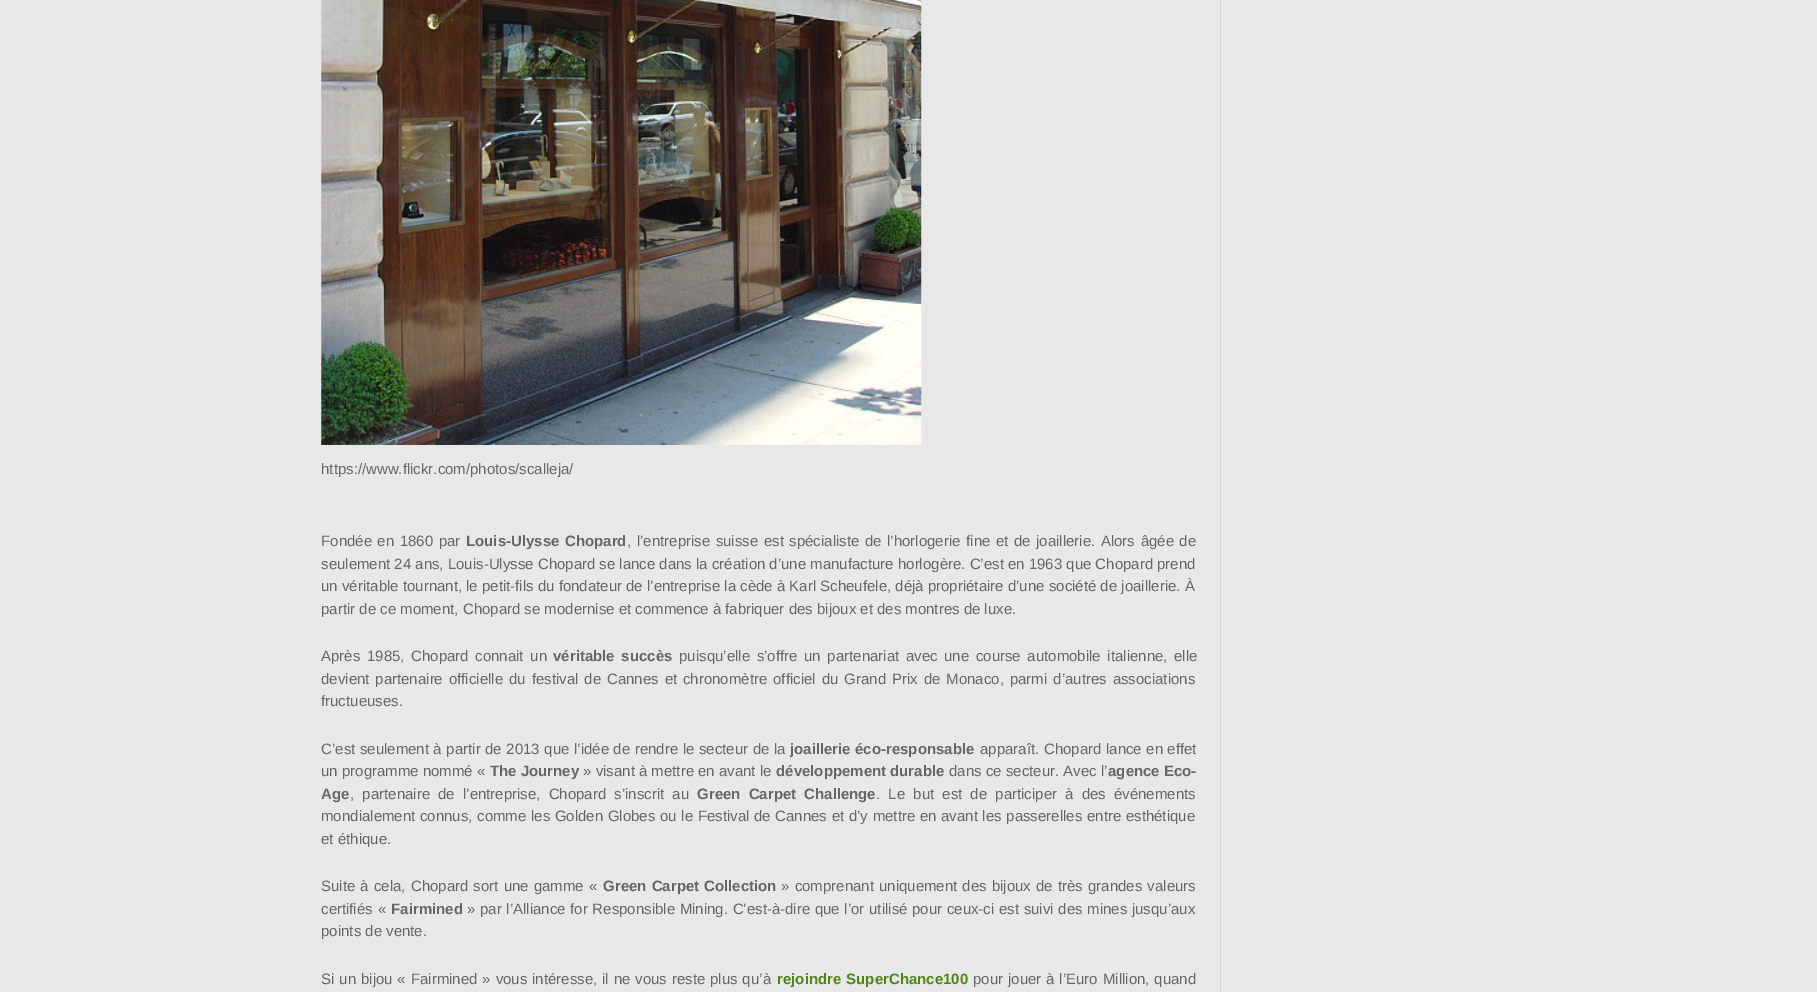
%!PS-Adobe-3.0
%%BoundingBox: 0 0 1817 992
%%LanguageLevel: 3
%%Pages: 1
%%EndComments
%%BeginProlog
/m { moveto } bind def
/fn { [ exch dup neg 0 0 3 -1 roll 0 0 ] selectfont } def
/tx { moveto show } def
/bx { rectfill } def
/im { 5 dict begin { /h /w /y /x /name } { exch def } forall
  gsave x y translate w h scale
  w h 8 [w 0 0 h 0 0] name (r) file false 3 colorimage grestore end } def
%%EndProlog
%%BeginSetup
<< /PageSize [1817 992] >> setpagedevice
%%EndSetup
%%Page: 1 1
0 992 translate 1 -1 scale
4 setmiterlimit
0.91 setgray
0 0 1817 992 bx
0.831 setgray
1220 0 1 992 bx
(image0.raw) 321 0 601 445 im
/LiberationSans-Regular 15 fn
0.4 setgray
(https://www.flickr.com/photos/scalleja/) 321 474 tx
321 546 m 1.4 0 32 (Fondée en 1860 par) widthshow
/LiberationSans-Bold 15 fn
466 546 m 1.4 0 32 (Louis-Ulysse Chopard) widthshow
/LiberationSans-Regular 15 fn
627 546 m 1.4 0 32 (, l’entreprise suisse est spécialiste de l’horlogerie fine et de joaillerie. Alors âgée de) widthshow
(seulement 24 ans, Louis-Ulysse Chopard se lance dans la création d’une manufacture horlogère. C’est en 1963 que Chopard prend) 321 569 tx
(un véritable tournant, le petit-fils du fondateur de l’entreprise la cède à Karl Scheufele, déjà propriétaire d’une société de joaillerie. À) 321 591 tx
(partir de ce moment, Chopard se modernise et commence à fabriquer des bijoux et des montres de luxe.) 321 614 tx
321 661 m 2.5 0 32 (Après 1985, Chopard connait un) widthshow
/LiberationSans-Bold 15 fn
553 661 m 2.5 0 32 (véritable succès) widthshow
/LiberationSans-Regular 15 fn
679 661 m 2.5 0 32 (puisqu’elle s’offre un partenariat avec une course automobile italienne, elle) widthshow
321 684 m 1.8 0 32 (devient partenaire officielle du festival de Cannes et chronomètre officiel du Grand Prix de Monaco, parmi d’autres associations) widthshow
(fructueuses.) 321 706 tx
321 754 m 0.4 0 32 (C’est seulement à partir de 2013 que l’idée de rendre le secteur de la) widthshow
/LiberationSans-Bold 15 fn
(joaillerie éco-responsable) 790 754 tx
/LiberationSans-Regular 15 fn
980 754 m 0.4 0 32 (apparaît. Chopard lance en effet) widthshow
(un programme nommé «) 321 776 tx
/LiberationSans-Bold 15 fn
(The Journey) 490 776 tx
/LiberationSans-Regular 15 fn
(» visant à mettre en avant le) 583 776 tx
/LiberationSans-Bold 15 fn
(développement durable) 776 776 tx
/LiberationSans-Regular 15 fn
(dans ce secteur. Avec l’) 949 776 tx
/LiberationSans-Bold 15 fn
(agence Eco-) 1108 776 tx
(Age) 321 799 tx
/LiberationSans-Regular 15 fn
350 799 m 4 0 32 (, partenaire de l’entreprise, Chopard s’inscrit au) widthshow
/LiberationSans-Bold 15 fn
697 799 m 4 0 32 (Green Carpet Challenge) widthshow
/LiberationSans-Regular 15 fn
876 799 m 4 0 32 (. Le but est de participer à des événements) widthshow
321 821 m 0.5 0 32 (mondialement connus, comme les Golden Globes ou le Festival de Cannes et d’y mettre en avant les passerelles entre esthétique) widthshow
(et éthique.) 321 844 tx
321 891 m 1 0 32 (Suite à cela, Chopard sort une gamme «) widthshow
/LiberationSans-Bold 15 fn
603 891 m 1 0 32 (Green Carpet Collection) widthshow
/LiberationSans-Regular 15 fn
781 891 m 1 0 32 (» comprenant uniquement des bijoux de très grandes valeurs) widthshow
321 914 m 1 0 32 (certifiés «) widthshow
/LiberationSans-Bold 15 fn
(Fairmined) 391 914 tx
/LiberationSans-Regular 15 fn
467 914 m 0.5 0 32 (» par l’Alliance for Responsible Mining. C’est-à-dire que l’or utilisé pour ceux-ci est suivi des mines jusqu’aux) widthshow
(points de vente.) 321 936 tx
321 984 m 0.75 0 32 (Si un bijou « Fairmined » vous intéresse, il ne vous reste plus qu’à) widthshow
/LiberationSans-Bold 15 fn
0.302 0.525 0.078 setrgbcolor
777 984 m 1 0 32 (rejoindre SuperChance100) widthshow
/LiberationSans-Regular 15 fn
0.4 setgray
973 984 m 0.75 0 32 (pour jouer à l’Euro Million, quand) widthshow
showpage
%%EOF
